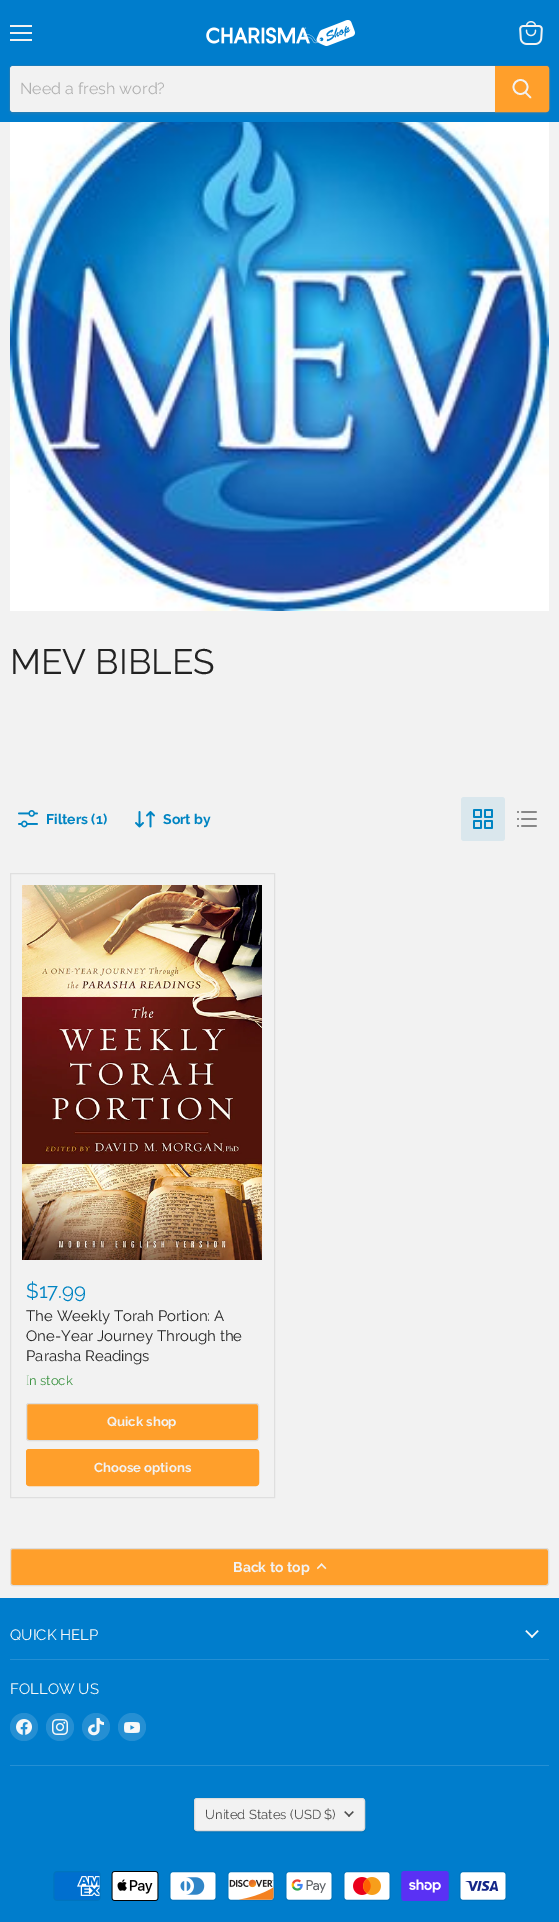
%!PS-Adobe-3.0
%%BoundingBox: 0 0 559 1922
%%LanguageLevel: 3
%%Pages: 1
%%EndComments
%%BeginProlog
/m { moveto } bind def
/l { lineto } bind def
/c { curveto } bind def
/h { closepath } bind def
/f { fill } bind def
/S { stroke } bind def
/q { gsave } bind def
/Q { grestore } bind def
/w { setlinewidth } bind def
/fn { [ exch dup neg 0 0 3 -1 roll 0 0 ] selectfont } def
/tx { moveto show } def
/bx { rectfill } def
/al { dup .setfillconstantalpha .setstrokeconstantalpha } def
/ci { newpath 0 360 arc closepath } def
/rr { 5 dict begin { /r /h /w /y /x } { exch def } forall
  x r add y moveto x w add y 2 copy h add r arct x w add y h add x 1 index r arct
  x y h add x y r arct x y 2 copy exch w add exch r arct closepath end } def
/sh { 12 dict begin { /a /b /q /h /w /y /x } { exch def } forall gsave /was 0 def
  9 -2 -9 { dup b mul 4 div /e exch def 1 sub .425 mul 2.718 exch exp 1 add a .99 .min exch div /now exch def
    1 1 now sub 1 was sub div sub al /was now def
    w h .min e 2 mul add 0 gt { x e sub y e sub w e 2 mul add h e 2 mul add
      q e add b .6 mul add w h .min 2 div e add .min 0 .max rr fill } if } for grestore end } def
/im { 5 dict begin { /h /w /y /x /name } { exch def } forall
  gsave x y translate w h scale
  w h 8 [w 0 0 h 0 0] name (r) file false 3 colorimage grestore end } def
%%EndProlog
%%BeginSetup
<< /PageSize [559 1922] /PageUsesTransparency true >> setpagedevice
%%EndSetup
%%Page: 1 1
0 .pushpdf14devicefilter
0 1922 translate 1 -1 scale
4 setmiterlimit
0.949 setgray
0 0 559 1922 bx
0 0.49 0.8 setrgbcolor
0 0 559 122 bx
0.949 setgray
10 25 22 2 bx
10 32 22 2 bx
10 39 22 2 bx
(image0.raw) 519 21 24 24 im
(image1.raw) 206 20 149 26 im
0.475 setgray
9 67 541 48 4 1.5 0.11 sh
0.2 al
9.5 65.5 540 47 3.5 rr S
1 al
0.949 setgray
13 66 m 495 66 l 495 112 l 13 112 l 11.5 112 10 110.5 10 109 c 10 69 l 10 67.5 11.5 66 13 66 c h f
/Raleway-Regular 16 fn
0.69 setgray
(Need a fresh word?) 20 94 tx
1 0.624 0.169 setrgbcolor
495.5 66.5 m 546 66.5 l 547.5 66.5 548.5 67.5 548.5 69 c 548.5 109 l 548.5 110.5 547.5 111.5 546 111.5 c 495.5 111.5 l h q f Q
S
0.949 setgray
1.7 w
1 setlinecap
530.5 97.5 m 525.5 92.5 l S
0 setlinecap
520.5 87 7 ci S
(image2.raw) 10 122 539 489 im
/Raleway-Regular 35.25 fn
0.133 setgray
(MEV BIBLES) 10 674 tx
(image3.raw) 18 810 20 18 im
/Raleway-Bold 14 fn
0 0.518 0.761 setrgbcolor
(Filters \(1\)) 46 824 tx
(image4.raw) 135 811 20 17 im
(Sort by) 163 824 tx
0.855 0.906 0.929 setrgbcolor
461 797 44 44 3 rr f
(image5.raw) 473 809 20 20 im
(image6.raw) 517 811 20 16 im
0.875 setgray
1 w
10.5 873.5 264 624 rectstroke
(image7.raw) 22 885 240 375 im
/Raleway-Regular 20.5 fn
0 0.518 0.761 setrgbcolor
($17.99) 26 1298 tx
/Raleway-Regular 15 fn
0.133 setgray
(The Weekly Torah Portion: A) 26 1321 tx
(One-Year Journey Through the) 26 1341 tx
(Parasha Readings) 26 1361 tx
/NotoSans-Thin 13.1 fn
0.235 0.576 0.259 setrgbcolor
(I) 26 1385 tx
/Raleway-Regular 13.1 fn
(n stock) 29 1385 tx
1 0.624 0.169 setrgbcolor
26.5 1403.5 232 37 2.5 rr q f Q
0.867 setgray
S
/Raleway-Bold 13.1 fn
0.949 setgray
(Quick shop) 107 1426 tx
1 0.624 0.169 setrgbcolor
26.5 1449.5 232 36 2.5 rr q f Q
S
0.949 setgray
(Choose options) 94 1472 tx
1 0.624 0.169 setrgbcolor
10.5 1548.5 538 37 2.5 rr q f Q
0.867 setgray
S
/Raleway-Bold 14 fn
0.949 setgray
(Back to top) 233 1572 tx
(image8.raw) 317 1563 10 7 im
0 0.49 0.8 setrgbcolor
0 1598 559 324 bx
0.145 0.561 0.827 setrgbcolor
10 1659 539 1 bx
/Raleway-Regular 15 fn
0.973 setgray
(QUICK HELP) 10 1640 tx
(image9.raw) 525 1630 14 8 im
0.145 0.561 0.827 setrgbcolor
10 1765 539 1 bx
0.973 setgray
(FOLLOW US) 10 1694 tx
0.145 0.561 0.827 setrgbcolor
24 1727 14 ci f
(image10.raw) 16 1719 16 16 im
60 1727 14 ci f
(image11.raw) 52 1719 16 16 im
96 1727 14 ci f
(image12.raw) 88 1718 16 18 im
132 1727 14 ci f
(image13.raw) 124 1722 16 11 im
0 setgray
194 1799 171 33 3 1 0.15 sh
0.949 setgray
194.5 1798.5 170 32 2.5 rr q f Q
0.867 setgray
S
/Raleway-Regular 13.1 fn
0.302 setgray
(United States \(USD $\)) 205 1819 tx
(image14.raw) 344 1811 10 6 im
(image15.raw) 53 1871 48 30 im
(image16.raw) 111 1871 48 30 im
(image17.raw) 169 1871 48 30 im
(image18.raw) 227 1871 48 30 im
(image19.raw) 285 1871 48 30 im
(image20.raw) 343 1871 48 30 im
(image21.raw) 401 1871 48 30 im
(image22.raw) 459 1871 48 30 im
.poppdf14devicefilter showpage
%%EOF
